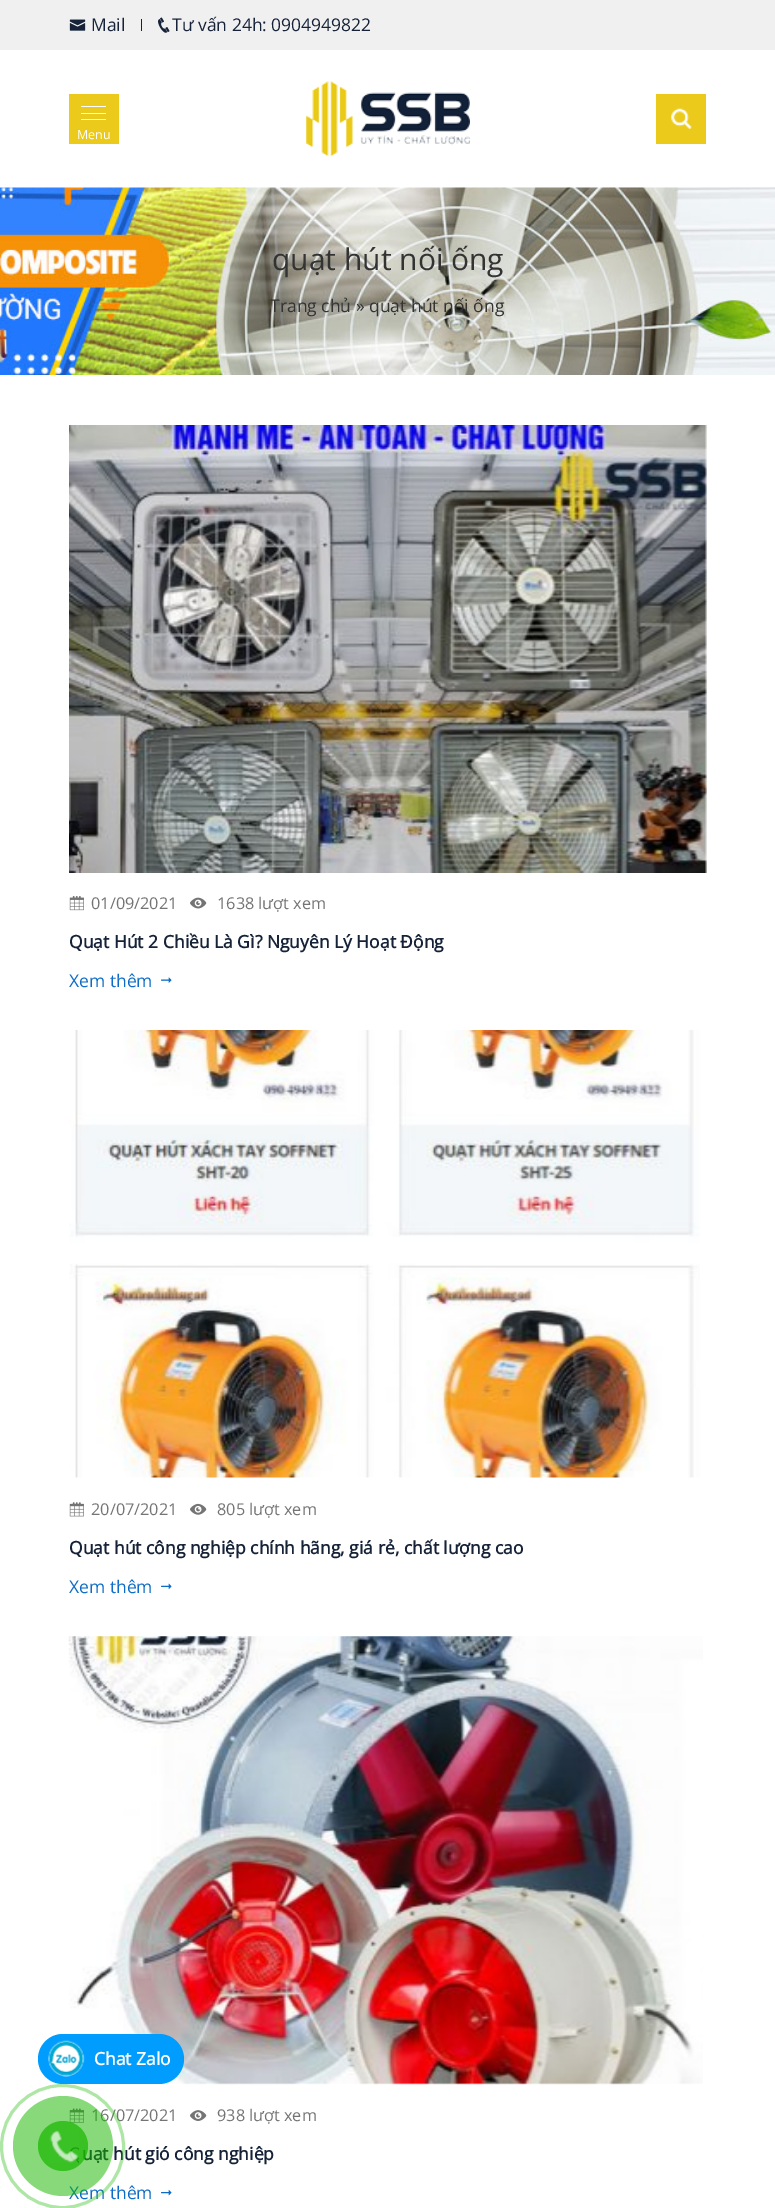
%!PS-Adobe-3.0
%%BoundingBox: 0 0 775 2208
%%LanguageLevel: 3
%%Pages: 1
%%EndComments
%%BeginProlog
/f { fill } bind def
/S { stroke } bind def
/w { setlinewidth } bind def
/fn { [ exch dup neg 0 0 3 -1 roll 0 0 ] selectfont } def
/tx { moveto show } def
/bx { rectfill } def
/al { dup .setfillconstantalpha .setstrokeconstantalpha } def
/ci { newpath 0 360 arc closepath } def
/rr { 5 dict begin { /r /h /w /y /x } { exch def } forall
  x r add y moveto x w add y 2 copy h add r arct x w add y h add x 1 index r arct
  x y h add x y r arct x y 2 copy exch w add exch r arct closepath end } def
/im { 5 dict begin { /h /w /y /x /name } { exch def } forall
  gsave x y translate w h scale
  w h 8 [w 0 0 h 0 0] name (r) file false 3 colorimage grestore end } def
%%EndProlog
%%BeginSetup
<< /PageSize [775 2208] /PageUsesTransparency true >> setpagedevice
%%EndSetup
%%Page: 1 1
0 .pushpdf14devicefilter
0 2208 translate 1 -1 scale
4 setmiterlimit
1 setgray
0 0 775 2208 bx
0.945 0.941 0.941 setrgbcolor
0 0 775 50 bx
(image0.raw) 69 19 17 12 im
/OpenSans-Regular 17.5 fn
0.082 0.133 0.22 setrgbcolor
(Mail) 91 31 tx
141 19 1 12 bx
(image1.raw) 158 17 12 16 im
(Tư vấn 24h: 0904949822) 172 31 tx
0.922 0.792 0.106 setrgbcolor
69 94 50 50 bx
1 setgray
81 119 25 1 0.5 rr f
81 106 25 1 0.5 rr f
81 113 25 1 0.5 rr f
/OpenSans-Regular 12.5 fn
(Menu) 77 139 tx
(image2.raw) 306 81 164 76 im
0.922 0.792 0.106 setrgbcolor
656 94 50 50 bx
(image3.raw) 671 108 21 21 im
(image4.raw) 0 187 775 188 im
/OpenSans-Regular 30 fn
0.2 setgray
(quạt hút nối ống) 272 270 tx
/OpenSans-Regular 17.5 fn
(Trang chủ » quạt hút nối ống) 270 312 tx
(image5.raw) 69 425 638 448 im
(image6.raw) 69 896 15 15 im
/OpenSans-Regular 16.25 fn
0.455 setgray
(01/09/2021) 91 909 tx
(image7.raw) 190 897 17 12 im
(1638 lượt xem) 217 909 tx
/OpenSans-Bold 17.5 fn
0.082 0.133 0.22 setrgbcolor
(Quạt Hút 2 Chiều Là Gì? Nguyên Lý Hoạt Động) 69 948 tx
/OpenSans-Regular 17.5 fn
0.051 0.427 0.776 setrgbcolor
(Xem thêm) 69 987 tx
(image8.raw) 161 977 11 6 im
(image9.raw) 69 1030 631 448 im
(image10.raw) 69 1502 15 15 im
/OpenSans-Regular 16.25 fn
0.455 setgray
(20/07/2021) 91 1515 tx
(image11.raw) 190 1503 17 12 im
(805 lượt xem) 217 1515 tx
/OpenSans-Bold 17.5 fn
0.082 0.133 0.22 setrgbcolor
(Quạt hút công nghiệp chính hãng, giá rẻ, chất lượng cao) 69 1554 tx
/OpenSans-Regular 17.5 fn
0.051 0.427 0.776 setrgbcolor
(Xem thêm) 69 1593 tx
(image12.raw) 161 1583 11 7 im
(image13.raw) 68 1636 635 449 im
(image14.raw) 69 2108 15 15 im
/OpenSans-Regular 16.25 fn
0.455 setgray
(16/07/2021) 91 2121 tx
(image15.raw) 190 2110 17 11 im
(938 lượt xem) 217 2121 tx
/OpenSans-Bold 17.5 fn
0.082 0.133 0.22 setrgbcolor
(uạt hút gió công nghiệp) 82 2160 tx
/OpenSans-Regular 17.5 fn
0.051 0.427 0.776 setrgbcolor
(Xem thêm) 69 2199 tx
(image16.raw) 161 2189 11 7 im
0 0.616 1 setrgbcolor
38 2034 146 50 25 rr f
(image17.raw) 48 2040 37 37 im
/OpenSans-Bold 17.5 fn
1 setgray
(Chat Zalo) 94 2065 tx
0.35 al
0.094 0.718 0 setrgbcolor
3 w
62.5 2146.5 61 ci S
0.52 al
63 2146 50 ci f
0.7 al
63 2146 25 ci f
1 al
(image18.raw) 49 2130 30 33 im
.poppdf14devicefilter showpage
%%EOF
